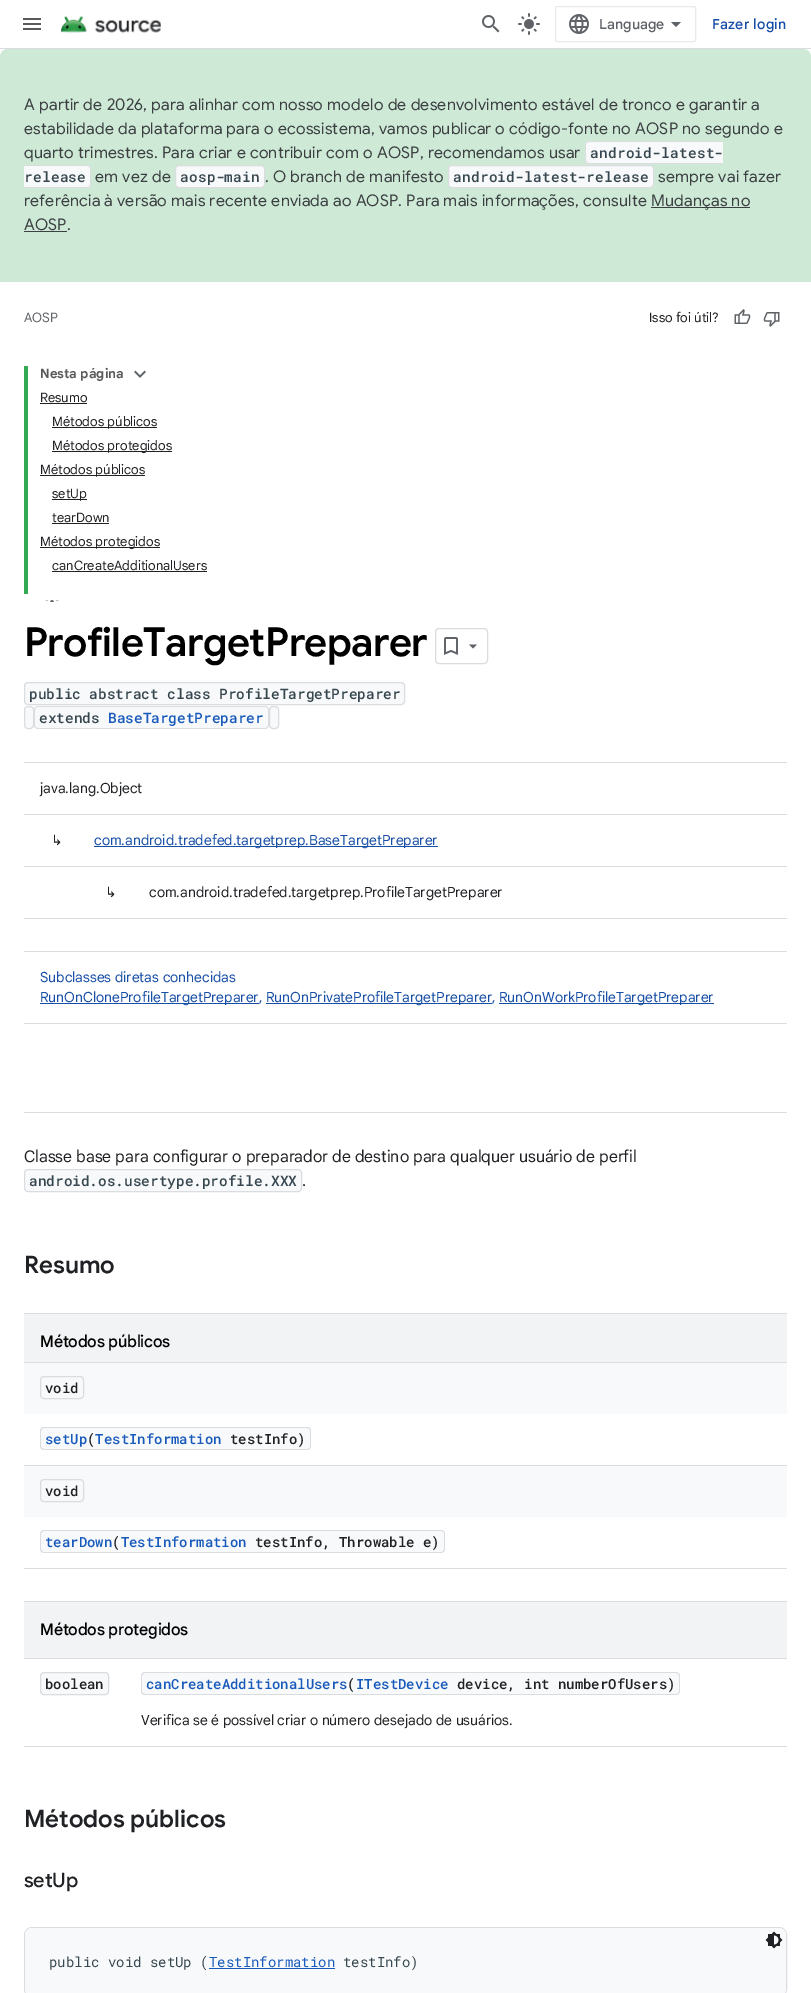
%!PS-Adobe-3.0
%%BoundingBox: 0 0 811 1993
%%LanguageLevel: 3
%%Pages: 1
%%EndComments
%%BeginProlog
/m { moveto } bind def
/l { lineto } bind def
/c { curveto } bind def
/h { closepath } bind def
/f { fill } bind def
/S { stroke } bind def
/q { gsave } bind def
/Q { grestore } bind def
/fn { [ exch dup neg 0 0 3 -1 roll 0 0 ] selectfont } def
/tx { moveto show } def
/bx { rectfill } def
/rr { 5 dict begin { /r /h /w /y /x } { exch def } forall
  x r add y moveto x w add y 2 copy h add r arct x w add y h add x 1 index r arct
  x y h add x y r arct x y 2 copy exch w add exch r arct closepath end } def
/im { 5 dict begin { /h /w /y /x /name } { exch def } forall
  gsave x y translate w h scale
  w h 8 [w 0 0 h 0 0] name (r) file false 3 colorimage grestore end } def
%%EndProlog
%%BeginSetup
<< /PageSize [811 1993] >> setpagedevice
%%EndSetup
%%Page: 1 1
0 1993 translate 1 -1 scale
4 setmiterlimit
1 setgray
0 0 811 1993 bx
0.855 0.863 0.878 setrgbcolor
0 48 811 1 bx
(image0.raw) 23 18 18 12 im
(image1.raw) 60 15 101 18 im
(image2.raw) 482 15 18 18 im
(image3.raw) 518 13 22 22 im
0.91 0.918 0.929 setrgbcolor
555.5 6.5 140 35 1.5 rr S
(image4.raw) 569 14 20 20 im
/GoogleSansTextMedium-Medium 14 fn
0.373 0.388 0.408 setrgbcolor
(Language) 599 29 tx
676 27 m 671 22 l 681 22 l h f
0.09 0.306 0.651 setrgbcolor
712 29 m 0.25 0 (Fazer login) ashow
0.808 0.918 0.839 setrgbcolor
8 49 m 803 49 l 807.5 49 811 52.5 811 57 c 811 282 l 0 282 l 0 57 l 0 52.5 3.5 49 8 49 c h f
/GoogleSans-Regular 16 fn
0.235 0.251 0.263 setrgbcolor
24 110 m 0.25 0 (A partir de 2026, para alinhar com nosso modelo de desenvolvimento estável de tronco e garantir a) ashow
24 134 m 0.25 0 (estabilidade da plataforma para o ecossistema, vamos publicar o código-fonte no AOSP no segundo e) ashow
24 158 m 0.25 0 (quarto trimestres. Para criar e contribuir com o AOSP, recomendamos usar) ashow
0.973 0.976 0.98 setrgbcolor
589 141 m 723 141 l 723 164 l 589 164 l 587 164 585 162 585 160 c 585 145 l 585 143 587 141 589 141 c h f
0.855 0.863 0.878 setrgbcolor
589 141 m 723 141 l 723 164 l 589 164 l 587 164 585 162 585 160 c 585 145 l 585 143 587 141 589 141 c h 589 142 m 723 142 l 723 163 l 589 163 l 587 163 586 162 586 160 c 586 145 l 586 143 587 142 589 142 c h eofill
/RobotoMono-Medium 14.4 fn
0.216 0.278 0.31 setrgbcolor
590 158 m 0.25 0 (android-latest-) ashow
0.973 0.976 0.98 setrgbcolor
24 165 m 87 165 l 89 165 91 167 91 169 c 91 184 l 91 186 89 188 87 188 c 24 188 l h f
0.855 0.863 0.878 setrgbcolor
24 165 m 87 165 l 89 165 91 167 91 169 c 91 184 l 91 186 89 188 87 188 c 24 188 l h 24 166 m 87 166 l 89 166 90 167 90 169 c 90 184 l 90 186 89 187 87 187 c 24 187 l h eofill
0.216 0.278 0.31 setrgbcolor
24 182 m 0.25 0 (release) ashow
/GoogleSans-Regular 16 fn
0.235 0.251 0.263 setrgbcolor
95 182 m 0.25 0 (em vez de) ashow
0.973 0.976 0.98 setrgbcolor
175.5 165.5 89 22 3.5 rr q f Q
0.855 0.863 0.878 setrgbcolor
S
/RobotoMono-Medium 14.4 fn
0.216 0.278 0.31 setrgbcolor
180 182 m 0.25 0 (aosp-main) ashow
/GoogleSans-Regular 16 fn
0.235 0.251 0.263 setrgbcolor
265 182 m 0.25 0 (. O branch de manifesto) ashow
0.973 0.976 0.98 setrgbcolor
448.5 165.5 205 22 3.5 rr q f Q
0.855 0.863 0.878 setrgbcolor
S
/RobotoMono-Medium 14.4 fn
0.216 0.278 0.31 setrgbcolor
453 182 m 0.25 0 (android-latest-release) ashow
/GoogleSans-Regular 16 fn
0.235 0.251 0.263 setrgbcolor
658 182 m 0.25 0 (sempre vai fazer) ashow
24 206 m 0.25 0 (referência à versão mais recente enviada ao AOSP. Para mais informações, consulte) ashow
651 207 99 1 bx
651 206 m 0.25 0 (Mudanças no) ashow
24 230 m 0.25 0 (AOSP.) ashow
24 231 43 1 bx
/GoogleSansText-Regular 13 fn
0.373 0.388 0.408 setrgbcolor
(AOSP) 24 322 tx
0.125 0.129 0.141 setrgbcolor
(Isso foi útil?) 649 322 tx
(image5.raw) 734 309 17 15 im
(image6.raw) 763 312 17 15 im
0.204 0.659 0.325 setrgbcolor
24 366 4 228 bx
/GoogleSansText-Bold 13 fn
0.349 setgray
(Nesta página) 40 378 tx
(image7.raw) 134 370 12 8 im
/GoogleSansText-Regular 13 fn
0.125 0.129 0.141 setrgbcolor
(Resumo) 40 402 tx
40 403 47 1 bx
52 427 105 1 bx
(Métodos públicos) 52 426 tx
52 451 120 1 bx
(Métodos protegidos) 52 450 tx
40 475 105 1 bx
(Métodos públicos) 40 474 tx
52 499 35 1 bx
(setUp) 52 498 tx
(tearDown) 52 522 tx
52 523 57 1 bx
40 547 120 1 bx
(Métodos protegidos) 40 546 tx
(canCreateAdditionalUsers) 52 570 tx
52 571 155 1 bx
(image8.raw) 45 600 14 2 im
/GoogleSans-SemiBold 40 fn
0 setgray
24 656 m -0.5 0 (ProfileTargetPreparer) ashow
0.855 0.863 0.878 setrgbcolor
435.5 628.5 52 35 3.5 rr S
(image9.raw) 444 637 14 18 im
0.373 0.388 0.408 setrgbcolor
469 644.5 m 477 644.5 l 473 648.5 l h f
0.973 0.976 0.98 setrgbcolor
24.5 682.5 380 22 3.5 rr q f Q
0.855 0.863 0.878 setrgbcolor
S
/RobotoMono-Medium 14.4 fn
0.216 0.278 0.31 setrgbcolor
(public abstract class ProfileTargetPreparer) 29 699 tx
0.973 0.976 0.98 setrgbcolor
24.5 706.5 9 22 3.5 rr q f Q
0.855 0.863 0.878 setrgbcolor
S
0.973 0.976 0.98 setrgbcolor
38 706 m 108 706 l 108 729 l 38 729 l 36 729 34 727 34 725 c 34 710 l 34 708 36 706 38 706 c h f
0.855 0.863 0.878 setrgbcolor
38 706 m 108 706 l 108 729 l 38 729 l 36 729 34 727 34 725 c 34 710 l 34 708 36 706 38 706 c h 38 707 m 108 707 l 108 728 l 38 728 l 36 728 35 727 35 725 c 35 710 l 35 708 36 707 38 707 c h eofill
0.216 0.278 0.31 setrgbcolor
(extends) 39 723 tx
0.973 0.976 0.98 setrgbcolor
108 706 m 265 706 l 267 706 269 708 269 710 c 269 725 l 269 727 267 729 265 729 c 108 729 l h f
0.855 0.863 0.878 setrgbcolor
108 706 m 265 706 l 267 706 269 708 269 710 c 269 725 l 269 727 267 729 265 729 c 108 729 l h 108 707 m 265 707 l 267 707 268 708 268 710 c 268 725 l 268 727 267 728 265 728 c 108 728 l h eofill
0.094 0.353 0.737 setrgbcolor
(BaseTargetPreparer) 108 723 tx
0.973 0.976 0.98 setrgbcolor
269.5 706.5 9 22 3.5 rr q f Q
0.855 0.863 0.878 setrgbcolor
S
24 762 763 1 bx
24 814 763 1 bx
/GoogleSansText-Regular 14 fn
0.125 0.129 0.141 setrgbcolor
(java.lang.Object) 40 793 tx
0.855 0.863 0.878 setrgbcolor
24 866 763 1 bx
/DejaVuSans-Regular 14 fn
0.125 0.129 0.141 setrgbcolor
(↳) 51 845 tx
0.09 0.306 0.651 setrgbcolor
94 846 344 1 bx
/GoogleSansText-Regular 14 fn
(com.android.tradefed.targetprep.BaseTargetPreparer) 94 845 tx
0.855 0.863 0.878 setrgbcolor
24 918 763 1 bx
/DejaVuSans-Regular 14 fn
0.125 0.129 0.141 setrgbcolor
(↳) 105 897 tx
/GoogleSansText-Regular 14 fn
(com.android.tradefed.targetprep.ProfileTargetPreparer) 149 897 tx
0.855 0.863 0.878 setrgbcolor
24 951 763 1 bx
24 1023 763 1 bx
0.09 0.306 0.651 setrgbcolor
(Subclasses diretas conhecidas) 40 982 tx
40 1003 219 1 bx
(RunOnCloneProfileTargetPreparer,) 40 1002 tx
266 1003 226 1 bx
(RunOnPrivateProfileTargetPreparer,) 266 1002 tx
499 1003 215 1 bx
(RunOnWorkProfileTargetPreparer) 499 1002 tx
0.855 0.863 0.878 setrgbcolor
24 1112 763 1 bx
/GoogleSansText-Regular 16 fn
0.125 0.129 0.141 setrgbcolor
(Classe base para configurar o preparador de destino para qualquer usuário de perfil) 24 1162 tx
0.973 0.976 0.98 setrgbcolor
24.5 1169.5 277 22 3.5 rr q f Q
0.855 0.863 0.878 setrgbcolor
S
/RobotoMono-Medium 14.4 fn
0.216 0.278 0.31 setrgbcolor
(android.os.usertype.profile.XXX) 29 1186 tx
/GoogleSansText-Regular 16 fn
0.125 0.129 0.141 setrgbcolor
(.) 302 1186 tx
/GoogleSans-SemiBold 24 fn
(Resumo) 24 1273 tx
0.855 0.863 0.878 setrgbcolor
24 1313 763 1 bx
24 1362 763 1 bx
0.945 0.953 0.957 setrgbcolor
24 1314 763 48 bx
/GoogleSansTextMedium-Medium 16 fn
0 setgray
40 1347 m -0.25 0 (Métodos públicos) ashow
0.855 0.863 0.878 setrgbcolor
24 1465 763 1 bx
0.973 0.976 0.98 setrgbcolor
24 1363 763 51 bx
0.855 0.863 0.878 setrgbcolor
40.5 1376.5 43 22 3.5 rr S
/RobotoMono-Medium 14 fn
0.125 0.129 0.141 setrgbcolor
(void) 45 1393 tx
0.973 0.976 0.98 setrgbcolor
44 1427 m 70 1427 l 70 1450 l 44 1450 l 42 1450 40 1448 40 1446 c 40 1431 l 40 1429 42 1427 44 1427 c h f
0.855 0.863 0.878 setrgbcolor
44 1427 m 70 1427 l 70 1450 l 44 1450 l 42 1450 40 1448 40 1446 c 40 1431 l 40 1429 42 1427 44 1427 c h 44 1428 m 70 1428 l 70 1449 l 44 1449 l 42.5 1449 41 1447.5 41 1446 c 41 1431 l 41 1429.5 42.5 1428 44 1428 c h eofill
0.973 0.976 0.98 setrgbcolor
70 1428 17 21 bx
87 1427 8 23 bx
95 1428 168 21 bx
0.094 0.353 0.737 setrgbcolor
(setUp TestInformation) 45 1444 tx
0.125 0.129 0.141 setrgbcolor
(\() 87 1444 tx
0.973 0.976 0.98 setrgbcolor
263 1427 m 307 1427 l 309 1427 311 1429 311 1431 c 311 1446 l 311 1448 309 1450 307 1450 c 263 1450 l h f
0.855 0.863 0.878 setrgbcolor
263 1427 m 307 1427 l 309 1427 311 1429 311 1431 c 311 1446 l 311 1448 309 1450 307 1450 c 263 1450 l h 263 1428 m 307 1428 l 309 1428 310 1429 310 1431 c 310 1446 l 310 1448 309 1449 307 1449 c 263 1449 l h eofill
0.125 0.129 0.141 setrgbcolor
(testInfo\)) 230 1444 tx
0.855 0.863 0.878 setrgbcolor
70 1427 17 1 bx
70 1449 17 1 bx
87 1427 176 1 bx
87 1449 176 1 bx
24 1568 763 1 bx
0.973 0.976 0.98 setrgbcolor
24 1466 763 51 bx
0.855 0.863 0.878 setrgbcolor
40.5 1479.5 43 22 3.5 rr S
0.125 0.129 0.141 setrgbcolor
(void) 45 1496 tx
0.973 0.976 0.98 setrgbcolor
44 1530 m 79 1530 l 79 1553 l 44 1553 l 42 1553 40 1551 40 1549 c 40 1534 l 40 1532 42 1530 44 1530 c h f
0.855 0.863 0.878 setrgbcolor
44 1530 m 79 1530 l 79 1553 l 44 1553 l 42 1553 40 1551 40 1549 c 40 1534 l 40 1532 42 1530 44 1530 c h 44 1531 m 79 1531 l 79 1552 l 44 1552 l 42.5 1552 41 1550.5 41 1549 c 41 1534 l 41 1532.5 42.5 1531 44 1531 c h eofill
0.973 0.976 0.98 setrgbcolor
79 1531 252 21 bx
0.094 0.353 0.737 setrgbcolor
(tearDown TestInformation) 45 1547 tx
0.125 0.129 0.141 setrgbcolor
(\() 112 1547 tx
0.855 0.863 0.878 setrgbcolor
79 1552 252 1 bx
0.973 0.976 0.98 setrgbcolor
331 1530 m 441 1530 l 443 1530 445 1532 445 1534 c 445 1549 l 445 1551 443 1553 441 1553 c 331 1553 l h f
0.855 0.863 0.878 setrgbcolor
331 1530 m 441 1530 l 443 1530 445 1532 445 1534 c 445 1549 l 445 1551 443 1553 441 1553 c 331 1553 l h 331 1531 m 441 1531 l 443 1531 444 1532 444 1534 c 444 1549 l 444 1551 443 1552 441 1552 c 331 1552 l h eofill
0.125 0.129 0.141 setrgbcolor
(testInfo, Throwable e\)) 255 1547 tx
0.855 0.863 0.878 setrgbcolor
79 1530 252 1 bx
24 1601 763 1 bx
24 1658 763 1 bx
0.945 0.953 0.957 setrgbcolor
24 1602 763 56 bx
/GoogleSansTextMedium-Medium 16 fn
0 setgray
40 1635 m -0.25 0 (Métodos protegidos) ashow
0.855 0.863 0.878 setrgbcolor
24 1746 763 1 bx
0.973 0.976 0.98 setrgbcolor
40.5 1672.5 68 22 3.5 rr q f Q
0.855 0.863 0.878 setrgbcolor
S
/RobotoMono-Medium 14 fn
0.125 0.129 0.141 setrgbcolor
(boolean) 45 1689 tx
0.973 0.976 0.98 setrgbcolor
145 1672 m 171 1672 l 171 1695 l 145 1695 l 143 1695 141 1693 141 1691 c 141 1676 l 141 1674 143 1672 145 1672 c h f
0.855 0.863 0.878 setrgbcolor
145 1672 m 171 1672 l 171 1695 l 145 1695 l 143 1695 141 1693 141 1691 c 141 1676 l 141 1674 143 1672 145 1672 c h 145 1673 m 171 1673 l 171 1694 l 145 1694 l 143.5 1694 142 1692.5 142 1691 c 142 1676 l 142 1674.5 143.5 1673 145 1673 c h eofill
0.973 0.976 0.98 setrgbcolor
171 1673 454 21 bx
0.094 0.353 0.737 setrgbcolor
(canCreateAdditionalUsers ITestDevice) 146 1689 tx
0.125 0.129 0.141 setrgbcolor
(\() 347 1689 tx
0.855 0.863 0.878 setrgbcolor
171 1694 454 1 bx
0.973 0.976 0.98 setrgbcolor
625 1672 m 676 1672 l 678 1672 680 1674 680 1676 c 680 1691 l 680 1693 678 1695 676 1695 c 625 1695 l h f
0.855 0.863 0.878 setrgbcolor
625 1672 m 676 1672 l 678 1672 680 1674 680 1676 c 680 1691 l 680 1693 678 1695 676 1695 c 625 1695 l h 625 1673 m 676 1673 l 678 1673 679 1674 679 1676 c 679 1691 l 679 1693 678 1694 676 1694 c 625 1694 l h eofill
0.125 0.129 0.141 setrgbcolor
(device, int numberOfUsers\)) 457 1689 tx
0.855 0.863 0.878 setrgbcolor
171 1672 454 1 bx
/GoogleSansText-Regular 14 fn
0.125 0.129 0.141 setrgbcolor
(Verifica se é possível criar o número desejado de usuários.) 141 1725 tx
/GoogleSans-SemiBold 24 fn
(Métodos públicos) 24 1827 tx
/GoogleSans-Medium 20 fn
24 1887 m -0.25 0 (setUp) ashow
0.855 0.863 0.878 setrgbcolor
24.5 1927.5 762 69 7.5 rr S
0.973 0.976 0.98 setrgbcolor
25 1928 761 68 7 rr f
(image10.raw) 765 1931 18 18 im
/RobotoMono-Regular 14 fn
0.216 0.278 0.31 setrgbcolor
(public void setUp \() 49 1967 tx
0.094 0.353 0.737 setrgbcolor
(TestInformation) 209 1967 tx
209 1968 126 1 bx
0.216 0.278 0.31 setrgbcolor
(testInfo\)) 343 1967 tx
showpage
%%EOF
